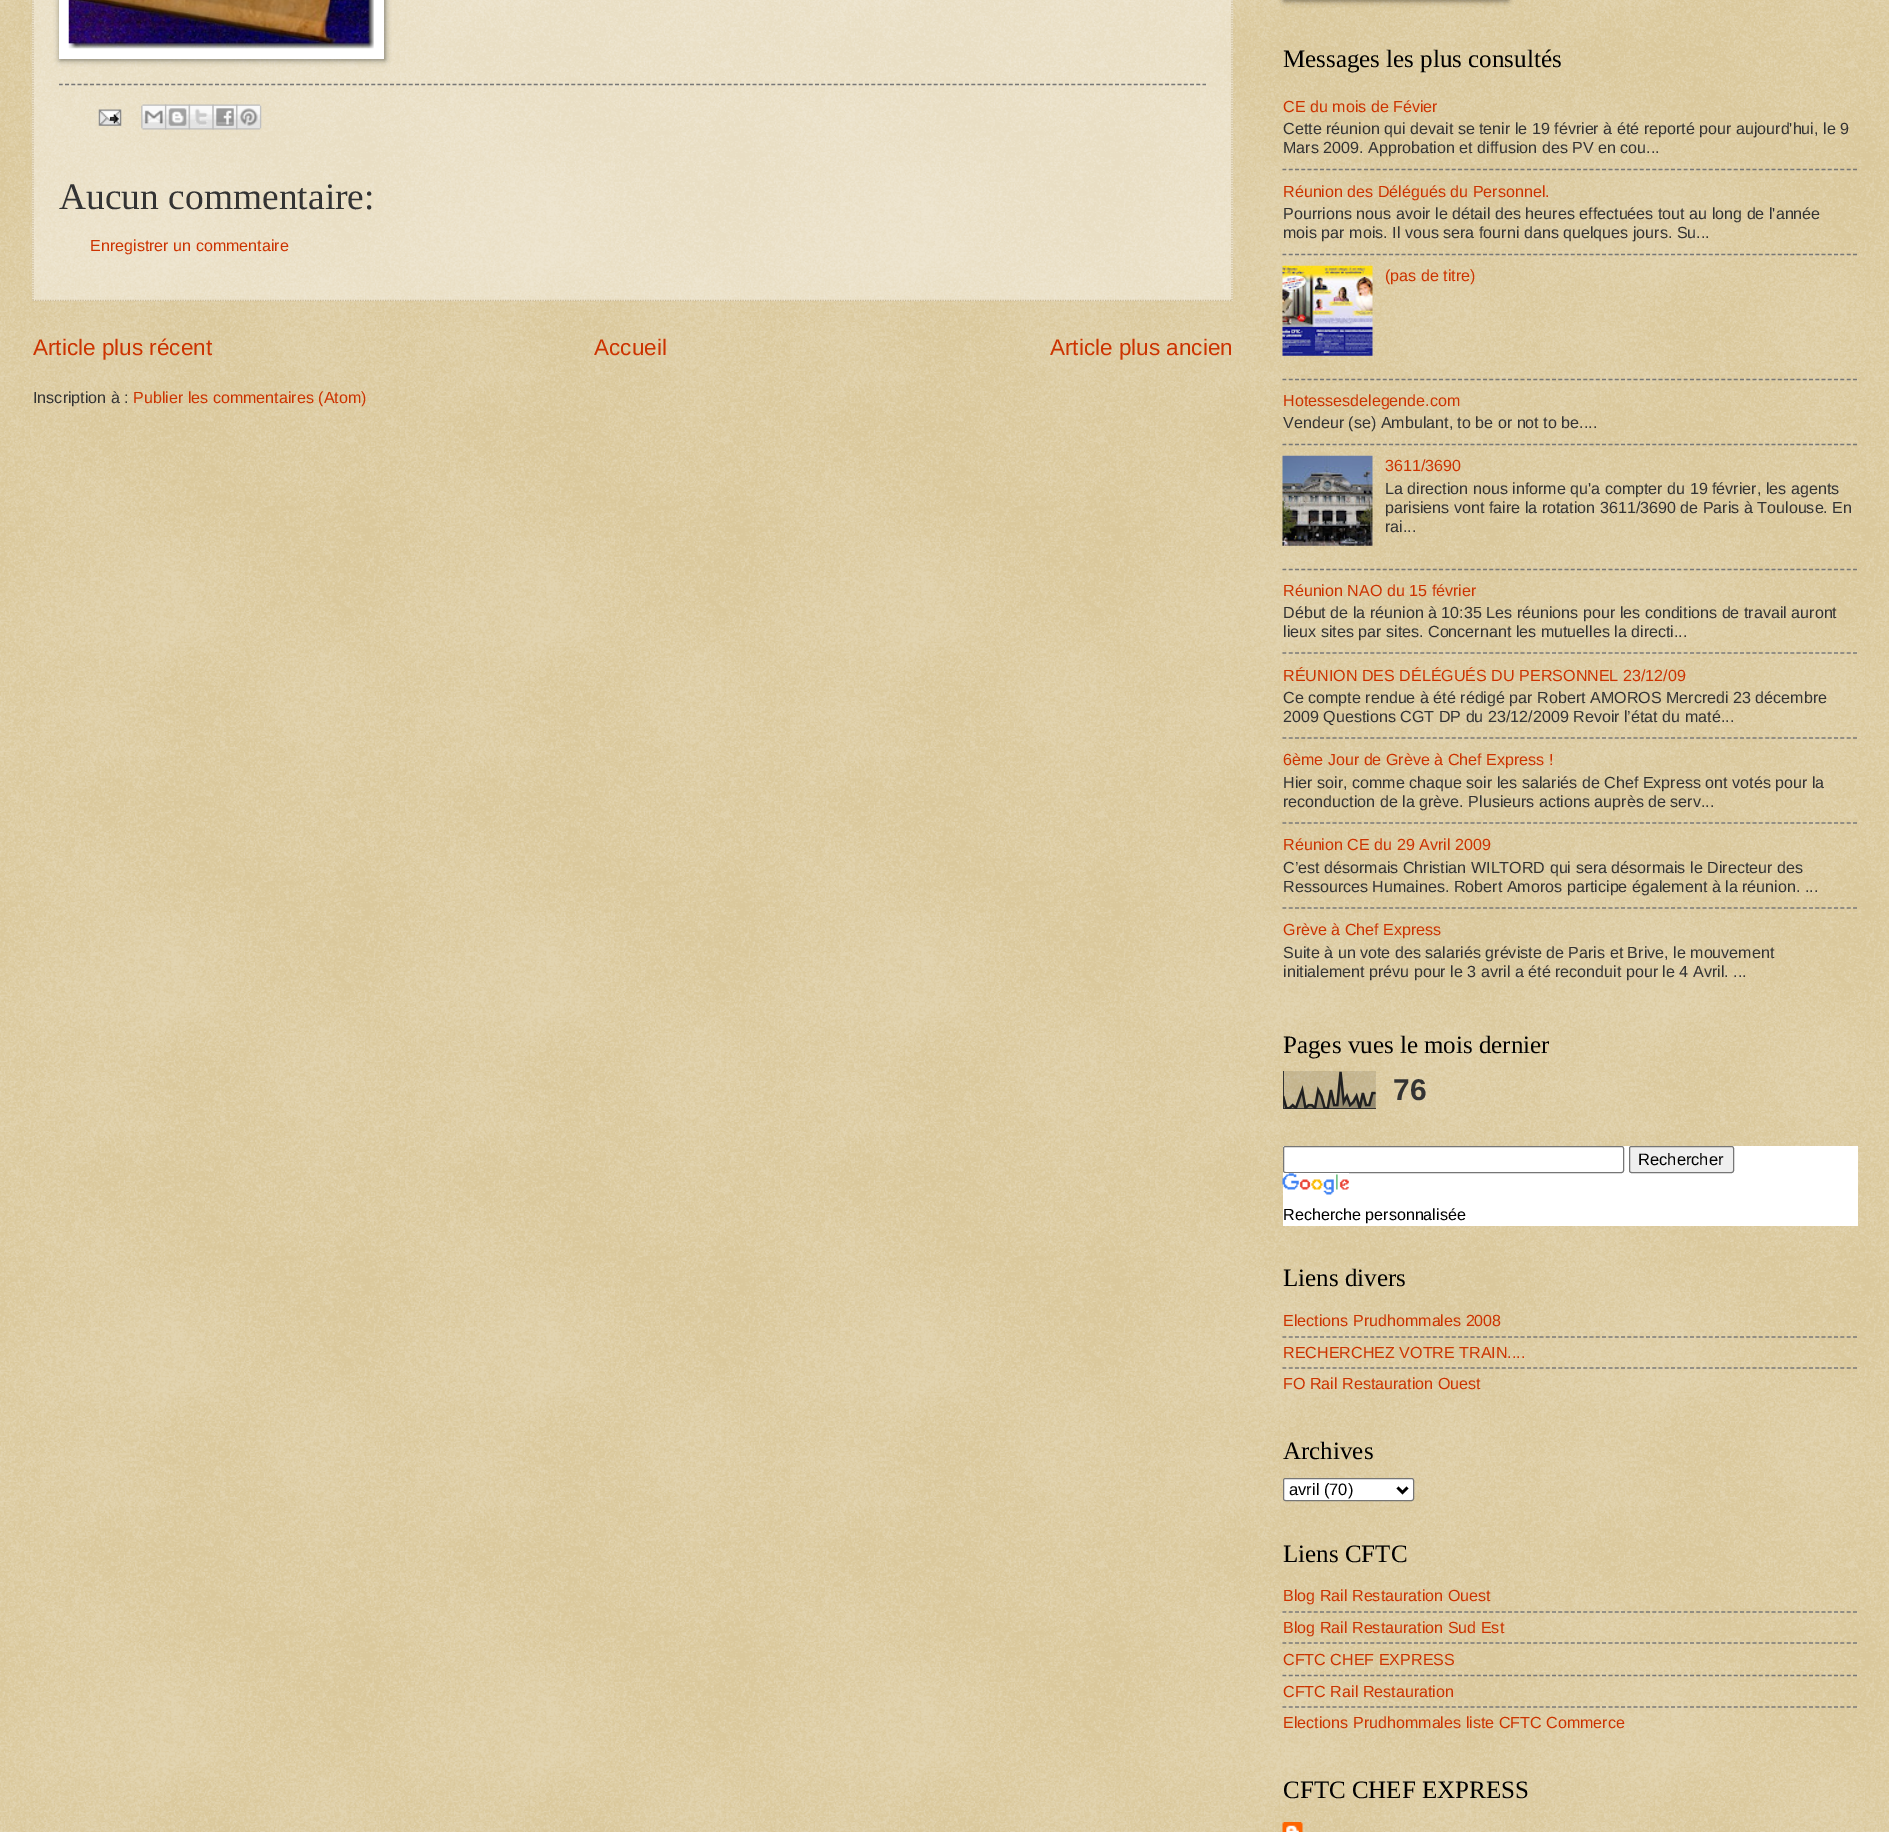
%!PS-Adobe-3.0
%%BoundingBox: 0 0 1889 1832
%%LanguageLevel: 3
%%Pages: 1
%%EndComments
%%BeginProlog
/m { moveto } bind def
/l { lineto } bind def
/f { fill } bind def
/S { stroke } bind def
/q { gsave } bind def
/Q { grestore } bind def
/w { setlinewidth } bind def
/fn { [ exch dup neg 0 0 3 -1 roll 0 0 ] selectfont } def
/tx { moveto show } def
/bx { rectfill } def
/al { dup .setfillconstantalpha .setstrokeconstantalpha } def
/rr { 5 dict begin { /r /h /w /y /x } { exch def } forall
  x r add y moveto x w add y 2 copy h add r arct x w add y h add x 1 index r arct
  x y h add x y r arct x y 2 copy exch w add exch r arct closepath end } def
/sh { 12 dict begin { /a /b /q /h /w /y /x } { exch def } forall gsave /was 0 def
  9 -2 -9 { dup b mul 4 div /e exch def 1 sub .425 mul 2.718 exch exp 1 add a .99 .min exch div /now exch def
    1 1 now sub 1 was sub div sub al /was now def
    w h .min e 2 mul add 0 gt { x e sub y e sub w e 2 mul add h e 2 mul add
      q e add b .6 mul add w h .min 2 div e add .min 0 .max rr fill } if } for grestore end } def
/im { 5 dict begin { /h /w /y /x /name } { exch def } forall
  gsave x y translate w h scale
  w h 8 [w 0 0 h 0 0] name (r) file false 3 colorimage grestore end } def
%%EndProlog
%%BeginSetup
<< /PageSize [1889 1832] /PageUsesTransparency true >> setpagedevice
%%EndSetup
%%Page: 1 1
0 .pushpdf14devicefilter
0 1832 translate 1 -1 scale
4 setmiterlimit
0.753 0.631 0.329 setrgbcolor
0 0 1889 1832 bx
(image0.raw) 0 0 1889 1832 im
0.4 al
1 setgray
32 0 1201 301 bx
1 al
0.8 0.733 0.6 setrgbcolor
1.2 w
[1.25 1.25] 0 setdash
1232 -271 m 1232 301 l S
32.5 300.5 m 1232.5 300.5 l S
33 -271 m 33 301 l S
0 setgray
60 -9 325 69 0 3 0.5 sh
1 setgray
59 0 325 59 bx
(image1.raw) 68 0 306 49 im
0.467 setgray
[3.75 2.5] 0 setdash
59 84.5 m 1206 84.5 l S
(image2.raw) 98 109 24 17 im
(image3.raw) 141 104 26 26 im
(image4.raw) 165 104 25 26 im
(image5.raw) 188 104 26 26 im
(image6.raw) 212 104 26 26 im
(image7.raw) 236 104 26 26 im
/LiberationSerif-Regular 37.5 fn
0.2 setgray
(Aucun commentaire:) 59 209 tx
/LiberationSans-Regular 16.1 fn
0.8 0.2 0 setrgbcolor
(Enregistrer un commentaire) 90 251 tx
/LiberationSans-Regular 22.5 fn
(Article plus récent) 33 355 tx
(Accueil) 594 355 tx
(Article plus ancien) 1050 355 tx
/LiberationSans-Regular 16.1 fn
0.2 setgray
(Inscription à :) 33 403 tx
0.8 0.2 0 setrgbcolor
(Publier les commentaires \(Atom\)) 133 403 tx
0 setgray
1284 -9 224 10 0 3 0.5 sh
/LiberationSerif-Regular 25 fn
(Messages les plus consultés) 1283 67 tx
/LiberationSans-Regular 16.1 fn
0.8 0.2 0 setrgbcolor
(CE du mois de Févier) 1283 112 tx
0.2 setgray
(Cette réunion qui devait se tenir le 19 février à été reporté pour aujourd'hui, le 9) 1283 134 tx
(Mars 2009. Approbation et diffusion des PV en cou...) 1283 153 tx
0.467 setgray
[3.75 2.52] 0 setdash
1282.5 169.5 m 1857.5 169.5 l S
0.8 0.2 0 setrgbcolor
(Réunion des Délégués du Personnel.) 1283 197 tx
0.2 setgray
(Pourrions nous avoir le détail des heures effectuées tout au long de l'année) 1283 219 tx
(mois par mois. Il vous sera fourni dans quelques jours. Su...) 1283 238 tx
0.467 setgray
1282.5 254.5 m 1857.5 254.5 l S
(image8.raw) 1282 265 91 91 im
0.8 0.2 0 setrgbcolor
(\(pas de titre\)) 1385 281 tx
0.467 setgray
1282.5 379.5 m 1857.5 379.5 l S
0.8 0.2 0 setrgbcolor
(Hotessesdelegende.com) 1283 406 tx
0.2 setgray
(Vendeur \(se\) Ambulant, to be or not to be....) 1283 428 tx
0.467 setgray
1282.5 444.5 m 1857.5 444.5 l S
(image9.raw) 1282 455 91 91 im
0.8 0.2 0 setrgbcolor
(3611/3690) 1385 471 tx
0.2 setgray
(La direction nous informe qu'a compter du 19 février, les agents) 1385 494 tx
(parisiens vont faire la rotation 3611/3690 de Paris à Toulouse. En) 1385 513 tx
(rai...) 1385 532 tx
0.467 setgray
1282.5 569.5 m 1857.5 569.5 l S
0.8 0.2 0 setrgbcolor
(Réunion NAO du 15 février) 1283 596 tx
0.2 setgray
(Début de la réunion à 10:35 Les réunions pour les conditions de travail auront) 1283 618 tx
(lieux sites par sites. Concernant les mutuelles la directi...) 1283 637 tx
0.467 setgray
1282.5 653 m 1857.5 653 l S
0.8 0.2 0 setrgbcolor
(RÉUNION DES DÉLÉGUÉS DU PERSONNEL 23/12/09) 1283 681 tx
0.2 setgray
(Ce compte rendue à été rédigé par Robert AMOROS Mercredi 23 décembre) 1283 703 tx
(2009 Questions CGT DP du 23/12/2009 Revoir l’état du maté...) 1283 722 tx
0.467 setgray
1282.5 738 m 1857.5 738 l S
0.8 0.2 0 setrgbcolor
(6ème Jour de Grève à Chef Express !) 1283 765 tx
0.2 setgray
(Hier soir, comme chaque soir les salariés de Chef Express ont votés pour la) 1283 788 tx
(reconduction de la grève. Plusieurs actions auprès de serv...) 1283 807 tx
0.467 setgray
1282.5 823 m 1857.5 823 l S
0.8 0.2 0 setrgbcolor
(Réunion CE du 29 Avril 2009) 1283 850 tx
0.2 setgray
(C’est désormais Christian WILTORD qui sera désormais le Directeur des) 1283 873 tx
(Ressources Humaines. Robert Amoros participe également à la réunion. ...) 1283 892 tx
0.467 setgray
1282.5 908 m 1857.5 908 l S
0.8 0.2 0 setrgbcolor
(Grève à Chef Express) 1283 935 tx
0.2 setgray
(Suite à un vote des salariés gréviste de Paris et Brive, le mouvement) 1283 958 tx
(initialement prévu pour le 3 avril a été reconduit pour le 4 Avril. ...) 1283 977 tx
/LiberationSerif-Regular 25 fn
0 setgray
(Pages vues le mois dernier) 1283 1053 tx
(image10.raw) 1283 1071 93 38 im
/LiberationSans-Bold 30 fn
0.2 setgray
(76) 1393 1100 tx
1 setgray
1283 1146 575 80 bx
0.463 setgray
1 w
[] 0 setdash
1283.5 1146.5 340 26 2 rr S
0.937 setgray
1629.5 1146.5 104 26 2 rr q f Q
0.463 setgray
S
/LiberationSans-Regular 16.5 fn
0 setgray
(Rechercher) 1638 1165 tx
(image11.raw) 1282 1173 67 22 im
/LiberationSans-Regular 16.1 fn
(Recherche personnalisée) 1283 1220 tx
/LiberationSerif-Regular 25 fn
(Liens divers) 1283 1286 tx
/LiberationSans-Regular 16.1 fn
0.8 0.2 0 setrgbcolor
(Elections Prudhommales 2008) 1283 1326 tx
0.467 setgray
1.2 w
[3.75 2.52] 0 setdash
1282.5 1337 m 1857.5 1337 l S
0.8 0.2 0 setrgbcolor
(RECHERCHEZ VOTRE TRAIN....) 1283 1358 tx
0.467 setgray
1282.5 1368 m 1857.5 1368 l S
0.8 0.2 0 setrgbcolor
(FO Rail Restauration Ouest) 1283 1389 tx
/LiberationSerif-Regular 25 fn
0 setgray
(Archives) 1283 1459 tx
1 setgray
1283.5 1478.5 130 22 2 rr q f Q
0.463 setgray
1 w
[] 0 setdash
S
0 setgray
2.5 w
1397.5 1487.5 m 1402.5 1492.5 l 1407.5 1487.5 l S
/LiberationSans-Regular 16.5 fn
(avril \(70\)) 1289 1495 tx
/LiberationSerif-Regular 25 fn
(Liens CFTC) 1283 1562 tx
/LiberationSans-Regular 16.1 fn
0.8 0.2 0 setrgbcolor
(Blog Rail Restauration Ouest) 1283 1601 tx
0.467 setgray
1.2 w
[3.75 2.52] 0 setdash
1282.5 1612 m 1857.5 1612 l S
0.8 0.2 0 setrgbcolor
(Blog Rail Restauration Sud Est) 1283 1633 tx
0.467 setgray
1282.5 1643 m 1857.5 1643 l S
0.8 0.2 0 setrgbcolor
(CFTC CHEF EXPRESS) 1283 1665 tx
0.467 setgray
1282.5 1675.5 m 1857.5 1675.5 l S
0.8 0.2 0 setrgbcolor
(CFTC Rail Restauration) 1283 1697 tx
0.467 setgray
1282.5 1707 m 1857.5 1707 l S
0.8 0.2 0 setrgbcolor
(Elections Prudhommales liste CFTC Commerce) 1283 1728 tx
/LiberationSerif-Regular 25 fn
0 setgray
(CFTC CHEF EXPRESS) 1283 1798 tx
(image12.raw) 1282 1822 21 10 im
.poppdf14devicefilter showpage
%%EOF
